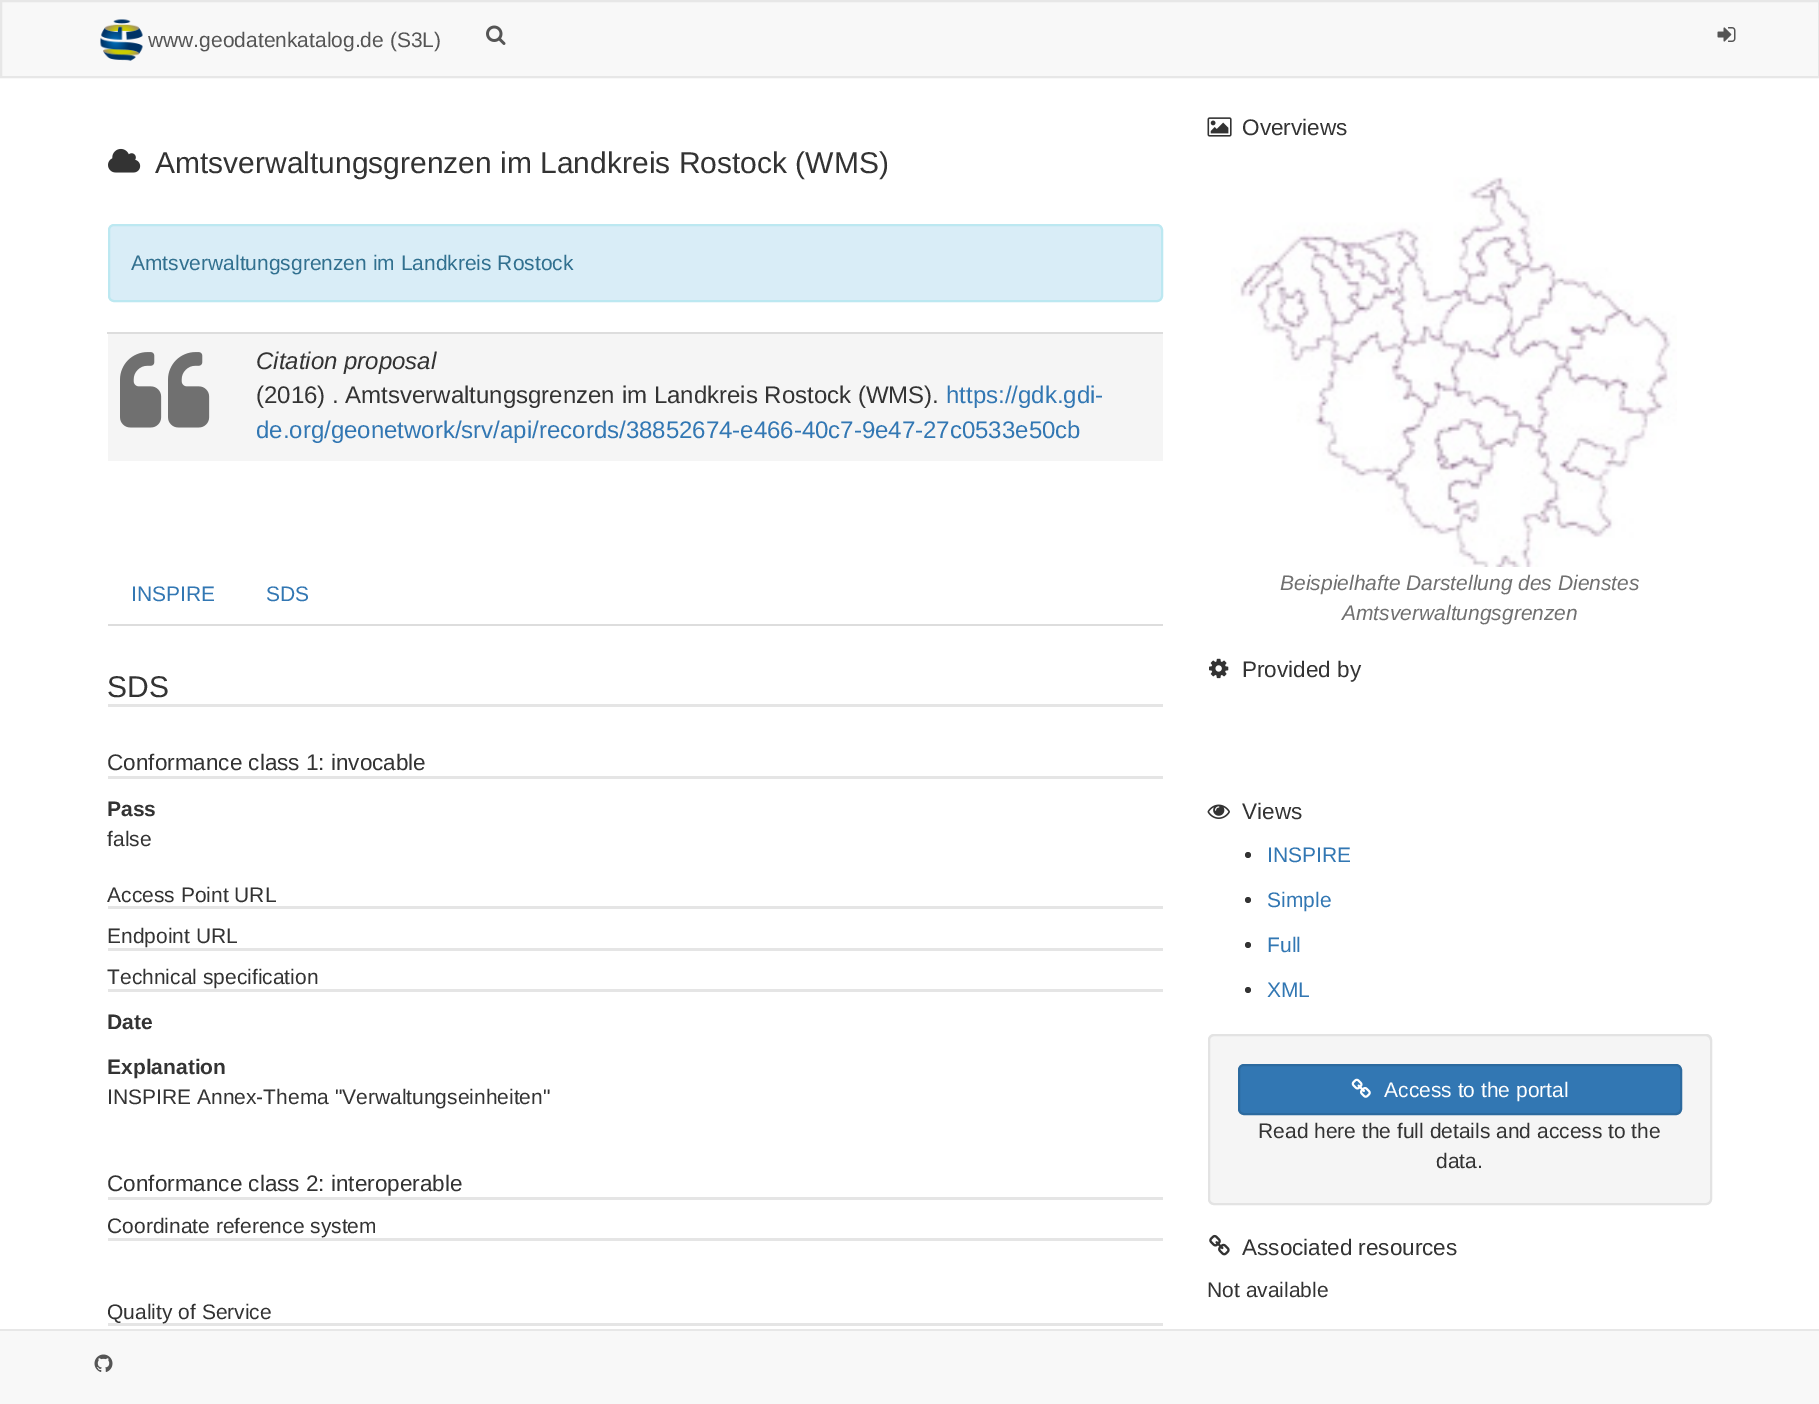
%!PS-Adobe-3.0
%%BoundingBox: 0 0 1819 1404
%%LanguageLevel: 3
%%Pages: 1
%%EndComments
%%BeginProlog
/m { moveto } bind def
/l { lineto } bind def
/c { curveto } bind def
/h { closepath } bind def
/f { fill } bind def
/S { stroke } bind def
/q { gsave } bind def
/Q { grestore } bind def
/w { setlinewidth } bind def
/fn { [ exch dup neg 0 0 3 -1 roll 0 0 ] selectfont } def
/tx { moveto show } def
/bx { rectfill } def
/ci { newpath 0 360 arc closepath } def
/rr { 5 dict begin { /r /h /w /y /x } { exch def } forall
  x r add y moveto x w add y 2 copy h add r arct x w add y h add x 1 index r arct
  x y h add x y r arct x y 2 copy exch w add exch r arct closepath end } def
/im { 5 dict begin { /h /w /y /x /name } { exch def } forall
  gsave x y translate w h scale
  w h 8 [w 0 0 h 0 0] name (r) file false 3 colorimage grestore end } def
%%EndProlog
%%BeginSetup
<< /PageSize [1819 1404] >> setpagedevice
%%EndSetup
%%Page: 1 1
0 1404 translate 1 -1 scale
4 setmiterlimit
1 setgray
0 0 1819 1404 bx
0.973 setgray
1 1 m 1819 1 l 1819 77 l 1 77 l h q f Q
0.906 setgray
2 w
S
(image0.raw) 100 19 43 42 im
/LiberationSans-Regular 21 fn
0.333 setgray
(www.geodatenkatalog.de \(S3L\)) 148 47 tx
(image1.raw) 486 25 20 20 im
(image2.raw) 1717 27 19 15 im
(image3.raw) 108 148 33 25 im
/LiberationSans-Regular 30 fn
0.2 setgray
(Amtsverwaltungsgrenzen im Landkreis Rostock \(WMS\)) 155 173 tx
0.851 0.929 0.969 setrgbcolor
109 225 1053 76 5 rr q f Q
0.737 0.91 0.945 setrgbcolor
S
/LiberationSans-Regular 21 fn
0.192 0.439 0.561 setrgbcolor
(Amtsverwaltungsgrenzen im Landkreis Rostock) 131 270 tx
0.961 setgray
108 334 1055 127 bx
(image4.raw) 120 352 90 76 im
0.867 setgray
107 332 1056 2 bx
/LiberationSans-Italic 24 fn
0.2 setgray
(Citation proposal) 256 369 tx
/LiberationSans-Regular 24 fn
(\(2016\) . Amtsverwaltungsgrenzen im Landkreis Rostock \(WMS\).) 256 403 tx
0.196 0.467 0.702 setrgbcolor
(https://gdk.gdi-) 946 403 tx
(de.org/geonetwork/srv/api/records/38852674-e466-40c7-9e47-27c0533e50cb) 256 438 tx
0.867 setgray
108 624 1055 2 bx
/LiberationSans-Regular 21 fn
0.196 0.467 0.702 setrgbcolor
(INSPIRE) 131 601 tx
(SDS) 266 601 tx
0.898 setgray
108 704 1055 3 bx
/LiberationSans-Regular 30 fn
0.2 setgray
(SDS) 107 697 tx
0.898 setgray
108 776 1055 3 bx
/LiberationSans-Regular 22.5 fn
0.2 setgray
(Conformance class 1: invocable) 107 770 tx
/LiberationSans-Bold 21 fn
(Pass) 107 816 tx
/LiberationSans-Regular 21 fn
(false) 107 846 tx
0.898 setgray
108 906 1055 3 bx
0.2 setgray
(Access Point URL) 107 902 tx
0.898 setgray
108 948 1055 3 bx
0.2 setgray
(Endpoint URL) 107 943 tx
0.898 setgray
108 989 1055 3 bx
0.2 setgray
(Technical specification) 107 984 tx
/LiberationSans-Bold 21 fn
(Date) 107 1029 tx
(Explanation) 107 1074 tx
/LiberationSans-Regular 21 fn
(INSPIRE Annex-Thema "Verwaltungseinheiten") 107 1104 tx
0.898 setgray
108 1197 1055 3 bx
/LiberationSans-Regular 22.5 fn
0.2 setgray
(Conformance class 2: interoperable) 107 1191 tx
0.898 setgray
108 1238 1055 3 bx
/LiberationSans-Regular 21 fn
0.2 setgray
(Coordinate reference system) 107 1233 tx
0.898 setgray
108 1323 1055 3 bx
0.2 setgray
(Quality of Service) 107 1319 tx
(image5.raw) 1207 117 25 20 im
/LiberationSans-Regular 22.5 fn
(Overviews) 1242 135 tx
(image6.raw) 1231 177 446 390 im
/LiberationSans-Italic 21 fn
0.439 setgray
(Beispielhafte Darstellung des Dienstes) 1280 590 tx
(Amtsverwaltungsgrenzen) 1342 620 tx
(image7.raw) 1209 658 20 21 im
/LiberationSans-Regular 22.5 fn
0.2 setgray
(Provided by) 1242 677 tx
(image8.raw) 1207 804 23 15 im
(Views) 1242 819 tx
1248 855 3 ci f
/LiberationSans-Regular 21 fn
0.196 0.467 0.702 setrgbcolor
(INSPIRE) 1267 862 tx
0.2 setgray
1248 900 3 ci f
0.196 0.467 0.702 setrgbcolor
(Simple) 1267 907 tx
0.2 setgray
1248 945 3 ci f
0.196 0.467 0.702 setrgbcolor
(Full) 1267 952 tx
0.2 setgray
1248 990 3 ci f
0.196 0.467 0.702 setrgbcolor
(XML) 1267 997 tx
0.961 setgray
1208 1034 504 171 6 rr f
0.914 setgray
1214 1036 m 1706 1036 l 1708 1036 1710 1039 1710 1041 c 1710 1040 l 1710 1037 1708 1035 1705 1035 c 1214 1035 l 1211 1035 1209 1037 1209 1040 c 1209 1041 l 1209 1039 1211 1036 1214 1036 c h f
0.89 setgray
1209 1035 502 169 5 rr S
0.196 0.467 0.702 setrgbcolor
1239 1065 442 49 5 rr q f Q
0.173 0.416 0.624 setrgbcolor
S
(image9.raw) 1351 1078 20 20 im
1 setgray
(Access to the portal) 1384 1097 tx
0.2 setgray
(Read here the full details and access to the) 1258 1138 tx
(data.) 1436 1168 tx
(image10.raw) 1209 1234 21 22 im
/LiberationSans-Regular 22.5 fn
(Associated resources) 1242 1255 tx
/LiberationSans-Regular 21 fn
(Not available) 1207 1297 tx
0.973 setgray
0 1331 1819 73 bx
0.906 setgray
0 1329 1819 2 bx
(image11.raw) 94 1354 19 18 im
showpage
%%EOF
